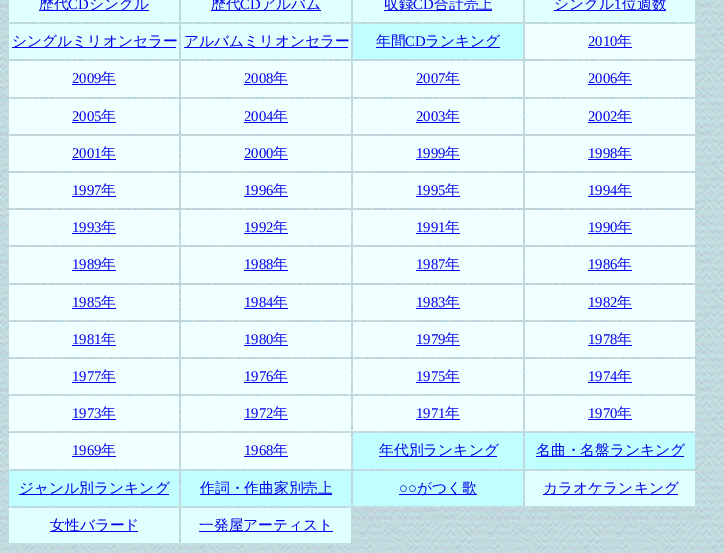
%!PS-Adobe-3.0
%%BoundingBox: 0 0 724 553
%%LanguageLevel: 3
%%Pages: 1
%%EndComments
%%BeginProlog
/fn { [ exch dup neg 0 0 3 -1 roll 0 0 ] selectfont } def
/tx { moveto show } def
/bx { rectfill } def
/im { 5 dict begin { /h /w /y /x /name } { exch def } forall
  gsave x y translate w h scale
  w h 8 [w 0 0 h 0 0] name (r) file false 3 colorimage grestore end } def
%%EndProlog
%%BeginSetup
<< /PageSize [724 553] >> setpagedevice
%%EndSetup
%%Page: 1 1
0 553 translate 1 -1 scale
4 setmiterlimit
1 setgray
0 0 724 553 bx
(image0.raw) 0 0 724 553 im
0.878 1 1 setrgbcolor
9 0 170 22 bx
0 0 0.933 setrgbcolor
39 10 110 1 bx
/WenQuanYiZenHei-Medium 14.75 fn
(歴代) 39 9 tx
/LiberationSerif-Regular 14.75 fn
(CD) 68 9 tx
/WenQuanYiZenHei-Medium 14.75 fn
(シングル) 89 9 tx
0.878 1 1 setrgbcolor
181 0 170 22 bx
0 0 0.933 setrgbcolor
211 10 110 1 bx
(歴代) 211 9 tx
/LiberationSerif-Regular 14.75 fn
(CD) 240 9 tx
/WenQuanYiZenHei-Medium 14.75 fn
(アルバム) 261 9 tx
0.878 1 1 setrgbcolor
353 0 170 22 bx
0 0 0.933 setrgbcolor
384 10 108 1 bx
(収録) 384 9 tx
/LiberationSerif-Regular 14.75 fn
(CD) 413 9 tx
/WenQuanYiZenHei-Medium 14.75 fn
(合計売上) 434 9 tx
0.878 1 1 setrgbcolor
525 0 170 22 bx
0 0 0.933 setrgbcolor
554 10 112 1 bx
(シングル) 554 9 tx
/LiberationSerif-Regular 14.75 fn
(1) 614 9 tx
/WenQuanYiZenHei-Medium 14.75 fn
(位週数) 622 9 tx
0.878 1 1 setrgbcolor
9 24 170 35 bx
0 0 0.933 setrgbcolor
12 47 164 1 bx
(シングルミリオンセラー) 12 46 tx
0.878 1 1 setrgbcolor
181 24 170 35 bx
0 0 0.933 setrgbcolor
184 47 164 1 bx
(アルバムミリオンセラー) 184 46 tx
0.753 1 1 setrgbcolor
353 24 170 35 bx
0 0 0.933 setrgbcolor
376 47 124 1 bx
(年間) 376 46 tx
/LiberationSerif-Regular 14.75 fn
(CD) 405 46 tx
/WenQuanYiZenHei-Medium 14.75 fn
(ランキング) 425 46 tx
0.941 1 1 setrgbcolor
525 24 170 35 bx
/LiberationSerif-Regular 14.75 fn
0 0 0.933 setrgbcolor
(2010) 588 46 tx
588 47 44 1 bx
/WenQuanYiZenHei-Medium 14.75 fn
(年) 617 46 tx
0.941 1 1 setrgbcolor
9 61 170 36 bx
/LiberationSerif-Regular 14.75 fn
0 0 0.933 setrgbcolor
(2009) 72 83 tx
72 84 44 1 bx
/WenQuanYiZenHei-Medium 14.75 fn
(年) 101 83 tx
0.941 1 1 setrgbcolor
181 61 170 36 bx
/LiberationSerif-Regular 14.75 fn
0 0 0.933 setrgbcolor
(2008) 244 83 tx
244 84 44 1 bx
/WenQuanYiZenHei-Medium 14.75 fn
(年) 273 83 tx
0.941 1 1 setrgbcolor
353 61 170 36 bx
/LiberationSerif-Regular 14.75 fn
0 0 0.933 setrgbcolor
(2007) 416 83 tx
416 84 44 1 bx
/WenQuanYiZenHei-Medium 14.75 fn
(年) 445 83 tx
0.941 1 1 setrgbcolor
525 61 170 36 bx
/LiberationSerif-Regular 14.75 fn
0 0 0.933 setrgbcolor
(2006) 588 83 tx
588 84 44 1 bx
/WenQuanYiZenHei-Medium 14.75 fn
(年) 617 83 tx
0.941 1 1 setrgbcolor
9 99 170 35 bx
/LiberationSerif-Regular 14.75 fn
0 0 0.933 setrgbcolor
(2005) 72 121 tx
72 122 44 1 bx
/WenQuanYiZenHei-Medium 14.75 fn
(年) 101 121 tx
0.941 1 1 setrgbcolor
181 99 170 35 bx
/LiberationSerif-Regular 14.75 fn
0 0 0.933 setrgbcolor
(2004) 244 121 tx
244 122 44 1 bx
/WenQuanYiZenHei-Medium 14.75 fn
(年) 273 121 tx
0.941 1 1 setrgbcolor
353 99 170 35 bx
/LiberationSerif-Regular 14.75 fn
0 0 0.933 setrgbcolor
(2003) 416 121 tx
416 122 44 1 bx
/WenQuanYiZenHei-Medium 14.75 fn
(年) 445 121 tx
0.941 1 1 setrgbcolor
525 99 170 35 bx
/LiberationSerif-Regular 14.75 fn
0 0 0.933 setrgbcolor
(2002) 588 121 tx
588 122 44 1 bx
/WenQuanYiZenHei-Medium 14.75 fn
(年) 617 121 tx
0.941 1 1 setrgbcolor
9 136 170 35 bx
/LiberationSerif-Regular 14.75 fn
0 0 0.933 setrgbcolor
(2001) 72 158 tx
72 159 44 1 bx
/WenQuanYiZenHei-Medium 14.75 fn
(年) 101 158 tx
0.941 1 1 setrgbcolor
181 136 170 35 bx
/LiberationSerif-Regular 14.75 fn
0 0 0.933 setrgbcolor
(2000) 244 158 tx
244 159 44 1 bx
/WenQuanYiZenHei-Medium 14.75 fn
(年) 273 158 tx
0.941 1 1 setrgbcolor
353 136 170 35 bx
/LiberationSerif-Regular 14.75 fn
0 0 0.933 setrgbcolor
(1999) 416 158 tx
416 159 44 1 bx
/WenQuanYiZenHei-Medium 14.75 fn
(年) 445 158 tx
0.941 1 1 setrgbcolor
525 136 170 35 bx
/LiberationSerif-Regular 14.75 fn
0 0 0.933 setrgbcolor
(1998) 588 158 tx
588 159 44 1 bx
/WenQuanYiZenHei-Medium 14.75 fn
(年) 617 158 tx
0.941 1 1 setrgbcolor
9 173 170 35 bx
/LiberationSerif-Regular 14.75 fn
0 0 0.933 setrgbcolor
(1997) 72 195 tx
72 196 44 1 bx
/WenQuanYiZenHei-Medium 14.75 fn
(年) 101 195 tx
0.941 1 1 setrgbcolor
181 173 170 35 bx
/LiberationSerif-Regular 14.75 fn
0 0 0.933 setrgbcolor
(1996) 244 195 tx
244 196 44 1 bx
/WenQuanYiZenHei-Medium 14.75 fn
(年) 273 195 tx
0.941 1 1 setrgbcolor
353 173 170 35 bx
/LiberationSerif-Regular 14.75 fn
0 0 0.933 setrgbcolor
(1995) 416 195 tx
416 196 44 1 bx
/WenQuanYiZenHei-Medium 14.75 fn
(年) 445 195 tx
0.941 1 1 setrgbcolor
525 173 170 35 bx
/LiberationSerif-Regular 14.75 fn
0 0 0.933 setrgbcolor
(1994) 588 195 tx
588 196 44 1 bx
/WenQuanYiZenHei-Medium 14.75 fn
(年) 617 195 tx
0.941 1 1 setrgbcolor
9 210 170 35 bx
/LiberationSerif-Regular 14.75 fn
0 0 0.933 setrgbcolor
(1993) 72 232 tx
72 233 44 1 bx
/WenQuanYiZenHei-Medium 14.75 fn
(年) 101 232 tx
0.941 1 1 setrgbcolor
181 210 170 35 bx
/LiberationSerif-Regular 14.75 fn
0 0 0.933 setrgbcolor
(1992) 244 232 tx
244 233 44 1 bx
/WenQuanYiZenHei-Medium 14.75 fn
(年) 273 232 tx
0.941 1 1 setrgbcolor
353 210 170 35 bx
/LiberationSerif-Regular 14.75 fn
0 0 0.933 setrgbcolor
(1991) 416 232 tx
416 233 44 1 bx
/WenQuanYiZenHei-Medium 14.75 fn
(年) 445 232 tx
0.941 1 1 setrgbcolor
525 210 170 35 bx
/LiberationSerif-Regular 14.75 fn
0 0 0.933 setrgbcolor
(1990) 588 232 tx
588 233 44 1 bx
/WenQuanYiZenHei-Medium 14.75 fn
(年) 617 232 tx
0.941 1 1 setrgbcolor
9 247 170 36 bx
/LiberationSerif-Regular 14.75 fn
0 0 0.933 setrgbcolor
(1989) 72 269 tx
72 270 44 1 bx
/WenQuanYiZenHei-Medium 14.75 fn
(年) 101 269 tx
0.941 1 1 setrgbcolor
181 247 170 36 bx
/LiberationSerif-Regular 14.75 fn
0 0 0.933 setrgbcolor
(1988) 244 269 tx
244 270 44 1 bx
/WenQuanYiZenHei-Medium 14.75 fn
(年) 273 269 tx
0.941 1 1 setrgbcolor
353 247 170 36 bx
/LiberationSerif-Regular 14.75 fn
0 0 0.933 setrgbcolor
(1987) 416 269 tx
416 270 44 1 bx
/WenQuanYiZenHei-Medium 14.75 fn
(年) 445 269 tx
0.941 1 1 setrgbcolor
525 247 170 36 bx
/LiberationSerif-Regular 14.75 fn
0 0 0.933 setrgbcolor
(1986) 588 269 tx
588 270 44 1 bx
/WenQuanYiZenHei-Medium 14.75 fn
(年) 617 269 tx
0.941 1 1 setrgbcolor
9 285 170 35 bx
/LiberationSerif-Regular 14.75 fn
0 0 0.933 setrgbcolor
(1985) 72 307 tx
72 308 44 1 bx
/WenQuanYiZenHei-Medium 14.75 fn
(年) 101 307 tx
0.941 1 1 setrgbcolor
181 285 170 35 bx
/LiberationSerif-Regular 14.75 fn
0 0 0.933 setrgbcolor
(1984) 244 307 tx
244 308 44 1 bx
/WenQuanYiZenHei-Medium 14.75 fn
(年) 273 307 tx
0.941 1 1 setrgbcolor
353 285 170 35 bx
/LiberationSerif-Regular 14.75 fn
0 0 0.933 setrgbcolor
(1983) 416 307 tx
416 308 44 1 bx
/WenQuanYiZenHei-Medium 14.75 fn
(年) 445 307 tx
0.941 1 1 setrgbcolor
525 285 170 35 bx
/LiberationSerif-Regular 14.75 fn
0 0 0.933 setrgbcolor
(1982) 588 307 tx
588 308 44 1 bx
/WenQuanYiZenHei-Medium 14.75 fn
(年) 617 307 tx
0.941 1 1 setrgbcolor
9 322 170 35 bx
/LiberationSerif-Regular 14.75 fn
0 0 0.933 setrgbcolor
(1981) 72 344 tx
72 345 44 1 bx
/WenQuanYiZenHei-Medium 14.75 fn
(年) 101 344 tx
0.941 1 1 setrgbcolor
181 322 170 35 bx
/LiberationSerif-Regular 14.75 fn
0 0 0.933 setrgbcolor
(1980) 244 344 tx
244 345 44 1 bx
/WenQuanYiZenHei-Medium 14.75 fn
(年) 273 344 tx
0.941 1 1 setrgbcolor
353 322 170 35 bx
/LiberationSerif-Regular 14.75 fn
0 0 0.933 setrgbcolor
(1979) 416 344 tx
416 345 44 1 bx
/WenQuanYiZenHei-Medium 14.75 fn
(年) 445 344 tx
0.941 1 1 setrgbcolor
525 322 170 35 bx
/LiberationSerif-Regular 14.75 fn
0 0 0.933 setrgbcolor
(1978) 588 344 tx
588 345 44 1 bx
/WenQuanYiZenHei-Medium 14.75 fn
(年) 617 344 tx
0.941 1 1 setrgbcolor
9 359 170 35 bx
/LiberationSerif-Regular 14.75 fn
0 0 0.933 setrgbcolor
(1977) 72 381 tx
72 382 44 1 bx
/WenQuanYiZenHei-Medium 14.75 fn
(年) 101 381 tx
0.941 1 1 setrgbcolor
181 359 170 35 bx
/LiberationSerif-Regular 14.75 fn
0 0 0.933 setrgbcolor
(1976) 244 381 tx
244 382 44 1 bx
/WenQuanYiZenHei-Medium 14.75 fn
(年) 273 381 tx
0.941 1 1 setrgbcolor
353 359 170 35 bx
/LiberationSerif-Regular 14.75 fn
0 0 0.933 setrgbcolor
(1975) 416 381 tx
416 382 44 1 bx
/WenQuanYiZenHei-Medium 14.75 fn
(年) 445 381 tx
0.941 1 1 setrgbcolor
525 359 170 35 bx
/LiberationSerif-Regular 14.75 fn
0 0 0.933 setrgbcolor
(1974) 588 381 tx
588 382 44 1 bx
/WenQuanYiZenHei-Medium 14.75 fn
(年) 617 381 tx
0.941 1 1 setrgbcolor
9 396 170 35 bx
/LiberationSerif-Regular 14.75 fn
0 0 0.933 setrgbcolor
(1973) 72 418 tx
72 419 44 1 bx
/WenQuanYiZenHei-Medium 14.75 fn
(年) 101 418 tx
0.941 1 1 setrgbcolor
181 396 170 35 bx
/LiberationSerif-Regular 14.75 fn
0 0 0.933 setrgbcolor
(1972) 244 418 tx
244 419 44 1 bx
/WenQuanYiZenHei-Medium 14.75 fn
(年) 273 418 tx
0.941 1 1 setrgbcolor
353 396 170 35 bx
/LiberationSerif-Regular 14.75 fn
0 0 0.933 setrgbcolor
(1971) 416 418 tx
416 419 44 1 bx
/WenQuanYiZenHei-Medium 14.75 fn
(年) 445 418 tx
0.941 1 1 setrgbcolor
525 396 170 35 bx
/LiberationSerif-Regular 14.75 fn
0 0 0.933 setrgbcolor
(1970) 588 418 tx
588 419 44 1 bx
/WenQuanYiZenHei-Medium 14.75 fn
(年) 617 418 tx
0.941 1 1 setrgbcolor
9 433 170 36 bx
/LiberationSerif-Regular 14.75 fn
0 0 0.933 setrgbcolor
(1969) 72 455 tx
72 456 44 1 bx
/WenQuanYiZenHei-Medium 14.75 fn
(年) 101 455 tx
0.941 1 1 setrgbcolor
181 433 170 36 bx
/LiberationSerif-Regular 14.75 fn
0 0 0.933 setrgbcolor
(1968) 244 455 tx
244 456 44 1 bx
/WenQuanYiZenHei-Medium 14.75 fn
(年) 273 455 tx
0.753 1 1 setrgbcolor
353 433 170 36 bx
0 0 0.933 setrgbcolor
379 456 118 1 bx
(年代別ランキング) 379 455 tx
0.753 1 1 setrgbcolor
525 433 170 36 bx
0 0 0.933 setrgbcolor
536 456 148 1 bx
(名曲・名盤ランキング) 536 455 tx
0.753 1 1 setrgbcolor
9 471 170 35 bx
0 0 0.933 setrgbcolor
19 494 150 1 bx
(ジャンル別ランキング) 19 493 tx
0.753 1 1 setrgbcolor
181 471 170 35 bx
0 0 0.933 setrgbcolor
200 494 132 1 bx
(作詞・作曲家別売上) 200 493 tx
0.753 1 1 setrgbcolor
353 471 170 35 bx
/LiberationSerif-Regular 14.75 fn
0 0 0.933 setrgbcolor
(○○) 399 493 tx
399 494 78 1 bx
/WenQuanYiZenHei-Medium 14.75 fn
(がつく歌) 417 493 tx
0.878 1 1 setrgbcolor
525 471 170 35 bx
0 0 0.933 setrgbcolor
543 494 135 1 bx
(カラオケランキング) 543 493 tx
0.878 1 1 setrgbcolor
9 508 170 35 bx
0 0 0.933 setrgbcolor
50 531 88 1 bx
(女性バラード) 50 530 tx
0.878 1 1 setrgbcolor
181 508 170 35 bx
0 0 0.933 setrgbcolor
199 531 134 1 bx
(一発屋アーティスト) 199 530 tx
showpage
%%EOF
